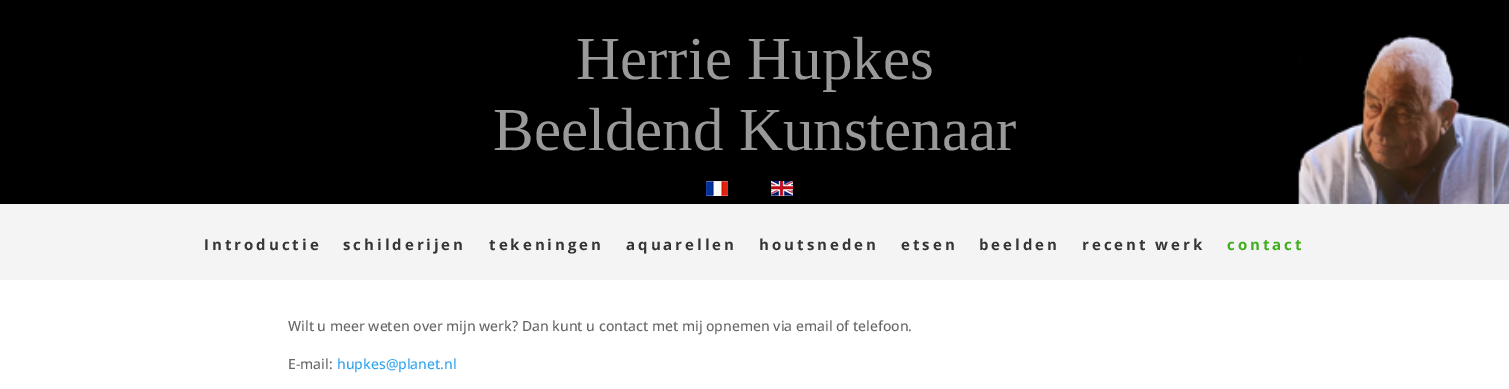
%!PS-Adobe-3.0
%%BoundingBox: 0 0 1509 389
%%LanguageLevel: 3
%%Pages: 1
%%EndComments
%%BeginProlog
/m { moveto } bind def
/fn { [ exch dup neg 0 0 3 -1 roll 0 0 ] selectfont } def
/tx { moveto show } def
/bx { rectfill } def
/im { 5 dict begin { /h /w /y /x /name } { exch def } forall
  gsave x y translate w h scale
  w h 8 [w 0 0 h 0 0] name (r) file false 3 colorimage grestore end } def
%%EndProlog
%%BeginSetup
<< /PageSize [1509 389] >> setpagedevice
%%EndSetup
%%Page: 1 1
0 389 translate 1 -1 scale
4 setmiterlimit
0.957 setgray
0 0 1509 389 bx
0 setgray
0 0 1509 204 bx
(image0.raw) 1298 35 211 169 im
/LiberationSerif-Regular 61 fn
0.6 setgray
(Herrie Hupkes) 576 79 tx
(Beeldend Kunstenaar) 493 150 tx
(image1.raw) 706 181 22 15 im
(image2.raw) 771 181 22 15 im
/OpenSans-Bold 15 fn
0.208 setgray
204 250 m 3 0 (Introductie) ashow
343 250 m 3 0 (schilderijen) ashow
489 250 m 3 0 (tekeningen) ashow
626 250 m 3 0 (aquarellen) ashow
759 250 m 3 0 (houtsneden) ashow
901 250 m 3 0 (etsen) ashow
979 250 m 3 0 (beelden) ashow
1082 250 m 3 0 (recent werk) ashow
0.247 0.678 0.114 setrgbcolor
1227 250 m 3 0 (contact) ashow
1 setgray
0 280 1509 109 bx
/OpenSans-Medium 14 fn
0.4 setgray
(Wilt u meer weten over mijn werk? Dan kunt u contact met mij opnemen via email of telefoon.) 288 331 tx
(E-mail:) 288 369 tx
0.18 0.639 0.949 setrgbcolor
(hupkes@planet.nl) 337 369 tx
showpage
%%EOF
